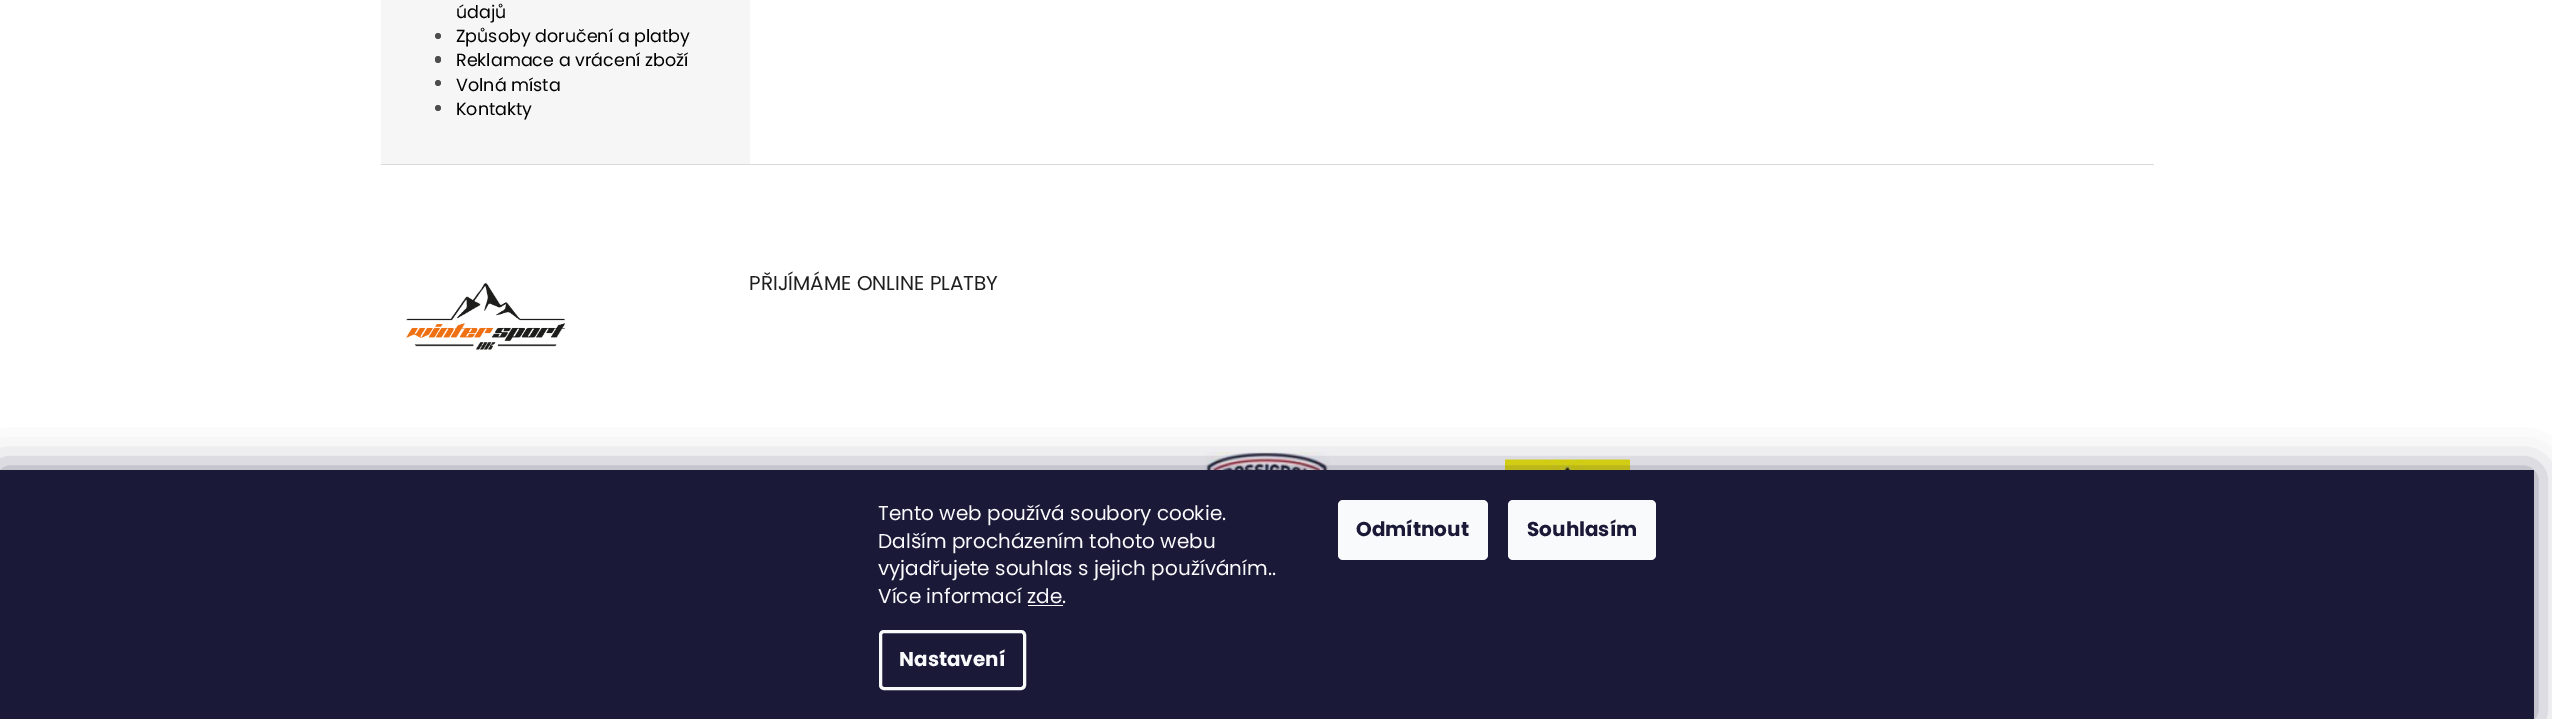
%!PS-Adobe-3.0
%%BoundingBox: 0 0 2552 719
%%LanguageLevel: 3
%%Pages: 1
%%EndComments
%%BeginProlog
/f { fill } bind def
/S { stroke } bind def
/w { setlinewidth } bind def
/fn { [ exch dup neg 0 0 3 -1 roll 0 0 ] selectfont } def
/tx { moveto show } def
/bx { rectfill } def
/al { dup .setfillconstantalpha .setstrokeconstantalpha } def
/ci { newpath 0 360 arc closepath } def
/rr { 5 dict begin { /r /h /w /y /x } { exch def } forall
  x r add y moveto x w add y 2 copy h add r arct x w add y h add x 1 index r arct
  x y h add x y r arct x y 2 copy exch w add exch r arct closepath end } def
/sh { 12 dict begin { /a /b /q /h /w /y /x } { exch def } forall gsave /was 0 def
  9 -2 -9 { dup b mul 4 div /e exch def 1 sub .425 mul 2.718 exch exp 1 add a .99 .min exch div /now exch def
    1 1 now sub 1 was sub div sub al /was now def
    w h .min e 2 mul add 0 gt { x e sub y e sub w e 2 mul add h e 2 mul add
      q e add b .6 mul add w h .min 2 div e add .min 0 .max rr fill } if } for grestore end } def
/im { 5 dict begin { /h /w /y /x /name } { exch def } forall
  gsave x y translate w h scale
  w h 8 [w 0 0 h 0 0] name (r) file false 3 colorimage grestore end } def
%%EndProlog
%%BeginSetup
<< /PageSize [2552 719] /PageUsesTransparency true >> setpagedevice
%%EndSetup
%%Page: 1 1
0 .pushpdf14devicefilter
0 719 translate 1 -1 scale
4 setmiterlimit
1 setgray
0 0 2552 719 bx
0.965 setgray
381 0 369 164 bx
/Poppins-Regular 17.5 fn
0 setgray
(údajů) 456 18 tx
0.302 setgray
438 36 3 ci f
0 setgray
(Způsoby doručení a platby) 456 42 tx
0.302 setgray
435 56 6 7 3 rr f
0 setgray
(Reklamace a vrácení zboží) 456 66 tx
0.302 setgray
438 83 3 ci f
0 setgray
(Volná místa) 456 91 tx
0.302 setgray
438 108 3 ci f
0 setgray
(Kontakty) 456 115 tx
0.855 setgray
381 164 1773 1 bx
/Poppins-Regular 20 fn
0.122 setgray
(PŘIJÍMÁME ONLINE PLATBY) 749 290 tx
(image0.raw) 406 283 159 67 im
(image1.raw) 1205 452 125 18 im
(image2.raw) 1505 459 125 11 im
0.106 0.098 0.224 setrgbcolor
0 470 2534 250 0 19 0.5 sh
0.102 0.098 0.216 setrgbcolor
0 470 2534 249 bx
0.973 0.98 0.984 setrgbcolor
(Tento web používá soubory cookie.) 878 520 tx
(Dalším procházením tohoto webu) 878 548 tx
(vyjadřujete souhlas s jejich používáním..) 878 575 tx
(Více informací zde.) 878 603 tx
1028 605 35 1 bx
3 w
880.5 631.5 144 57 3.5 rr S
/Poppins-Bold 20 fn
(Nastavení) 899 666 tx
1338 500 150 60 5 rr f
0.102 0.098 0.216 setrgbcolor
(Odmítnout) 1356 536 tx
0.973 0.98 0.984 setrgbcolor
1508 500 148 60 5 rr f
0.102 0.098 0.216 setrgbcolor
(Souhlasím) 1527 536 tx
.poppdf14devicefilter showpage
%%EOF
